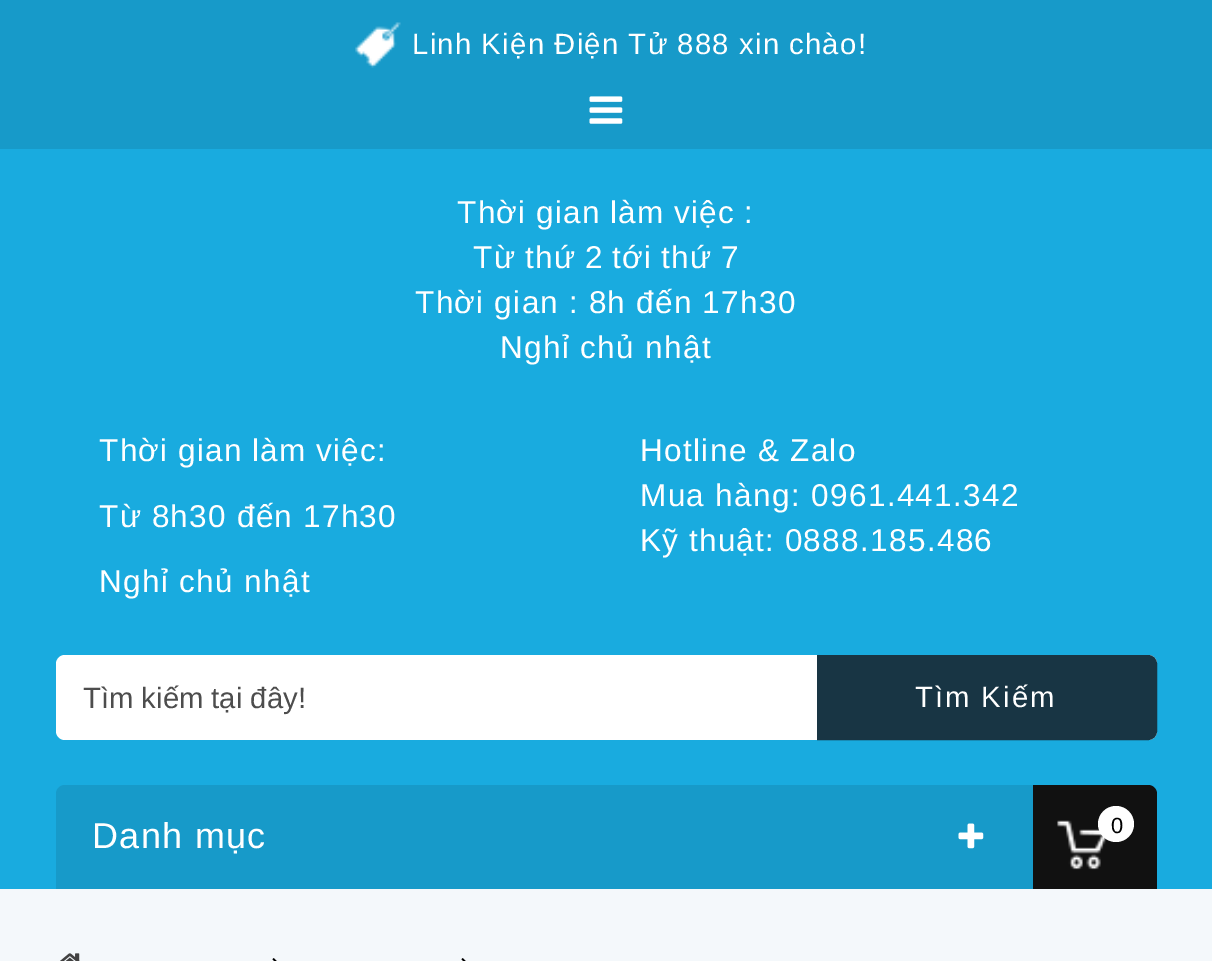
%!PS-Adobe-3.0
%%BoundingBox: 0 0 1212 961
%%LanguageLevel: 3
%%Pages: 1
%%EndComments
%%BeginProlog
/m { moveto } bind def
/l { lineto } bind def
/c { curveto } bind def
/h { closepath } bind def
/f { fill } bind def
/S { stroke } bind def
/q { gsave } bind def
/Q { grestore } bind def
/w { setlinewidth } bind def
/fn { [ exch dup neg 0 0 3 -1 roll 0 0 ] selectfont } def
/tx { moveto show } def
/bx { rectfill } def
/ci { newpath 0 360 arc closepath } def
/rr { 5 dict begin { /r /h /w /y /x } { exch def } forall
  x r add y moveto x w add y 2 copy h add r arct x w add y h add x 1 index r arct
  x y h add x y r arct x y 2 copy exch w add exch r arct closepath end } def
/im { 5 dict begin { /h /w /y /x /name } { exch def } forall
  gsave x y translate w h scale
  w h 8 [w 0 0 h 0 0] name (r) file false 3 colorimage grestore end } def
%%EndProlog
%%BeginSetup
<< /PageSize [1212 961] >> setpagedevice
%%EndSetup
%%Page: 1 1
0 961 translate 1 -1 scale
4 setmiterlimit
0.957 0.973 0.984 setrgbcolor
0 0 1212 961 bx
0.098 0.671 0.875 setrgbcolor
0 149 1212 740 bx
0.09 0.604 0.788 setrgbcolor
0 0 1212 149 bx
(image0.raw) 355 22 46 46 im
/LiberationSans-Regular 29.25 fn
1 setgray
412 54 m -0.75 0 32 1.35 0 (Linh Kiện Điện Tử 888 xin chào!) awidthshow
(image1.raw) 589 96 34 28 im
/LiberationSans-Regular 31.5 fn
457 223 m -1 0 32 1.35 0 (Thời gian làm việc :) awidthshow
473 268 m -1.5 0 32 1.35 0 (Từ thứ 2 tới thứ 7) awidthshow
415 313 m -0.5 0 32 1.35 0 (Thời gian : 8h đến 17h30) awidthshow
500 358 m 1.35 0 (Nghỉ chủ nhật) ashow
99 461 m -1 0 32 1.35 0 (Thời gian làm việc:) awidthshow
99 527 m -0.5 0 32 1.35 0 (Từ 8h30 đến 17h30) awidthshow
99 592 m 1.35 0 (Nghỉ chủ nhật) ashow
640 461 m 1.35 0 (Hotline & Zalo) ashow
640 506 m 1.35 0 (Mua hàng: 0961.441.342) ashow
640 551 m -1 0 32 1.35 0 (Kỹ thuật: 0888.185.486) awidthshow
56 655 1101 85 9 rr f
/LiberationSans-Regular 29.25 fn
0.302 setgray
(Tìm kiếm tại đây!) 83 708 tx
0.094 0.208 0.267 setrgbcolor
818 656 m 1148 656 l 1152.5 656 1156 659.5 1156 664 c 1156 731 l 1156 735.5 1152.5 739 1148 739 c 818 739 l h q f Q
2 w
S
1 setgray
915 707 m -1 0 32 2.25 0 (Tìm Kiếm) awidthshow
0.09 0.604 0.788 setrgbcolor
65 785 m 1145 785 l 1150 785 1154 789 1154 794 c 1154 889 l 56 889 l 56 794 l 56 789 60 785 65 785 c h f
/LiberationSans-Regular 36 fn
1 setgray
92 848 m 1.35 0 (Danh mục) ashow
(image2.raw) 958 823 26 26 im
0.067 setgray
1033 785 m 1148 785 l 1153 785 1157 789 1157 794 c 1157 889 l 1033 889 l h f
(image3.raw) 1057 820 50 50 im
1 setgray
1116 824 18 ci f
/LiberationSans-Regular 22 fn
0 setgray
1111 833 m 1.35 0 (0) ashow
(image4.raw) 60 953 20 8 im
(image5.raw) 272 958 5 3 im
(image5.raw) 461 958 5 3 im
showpage
%%EOF
